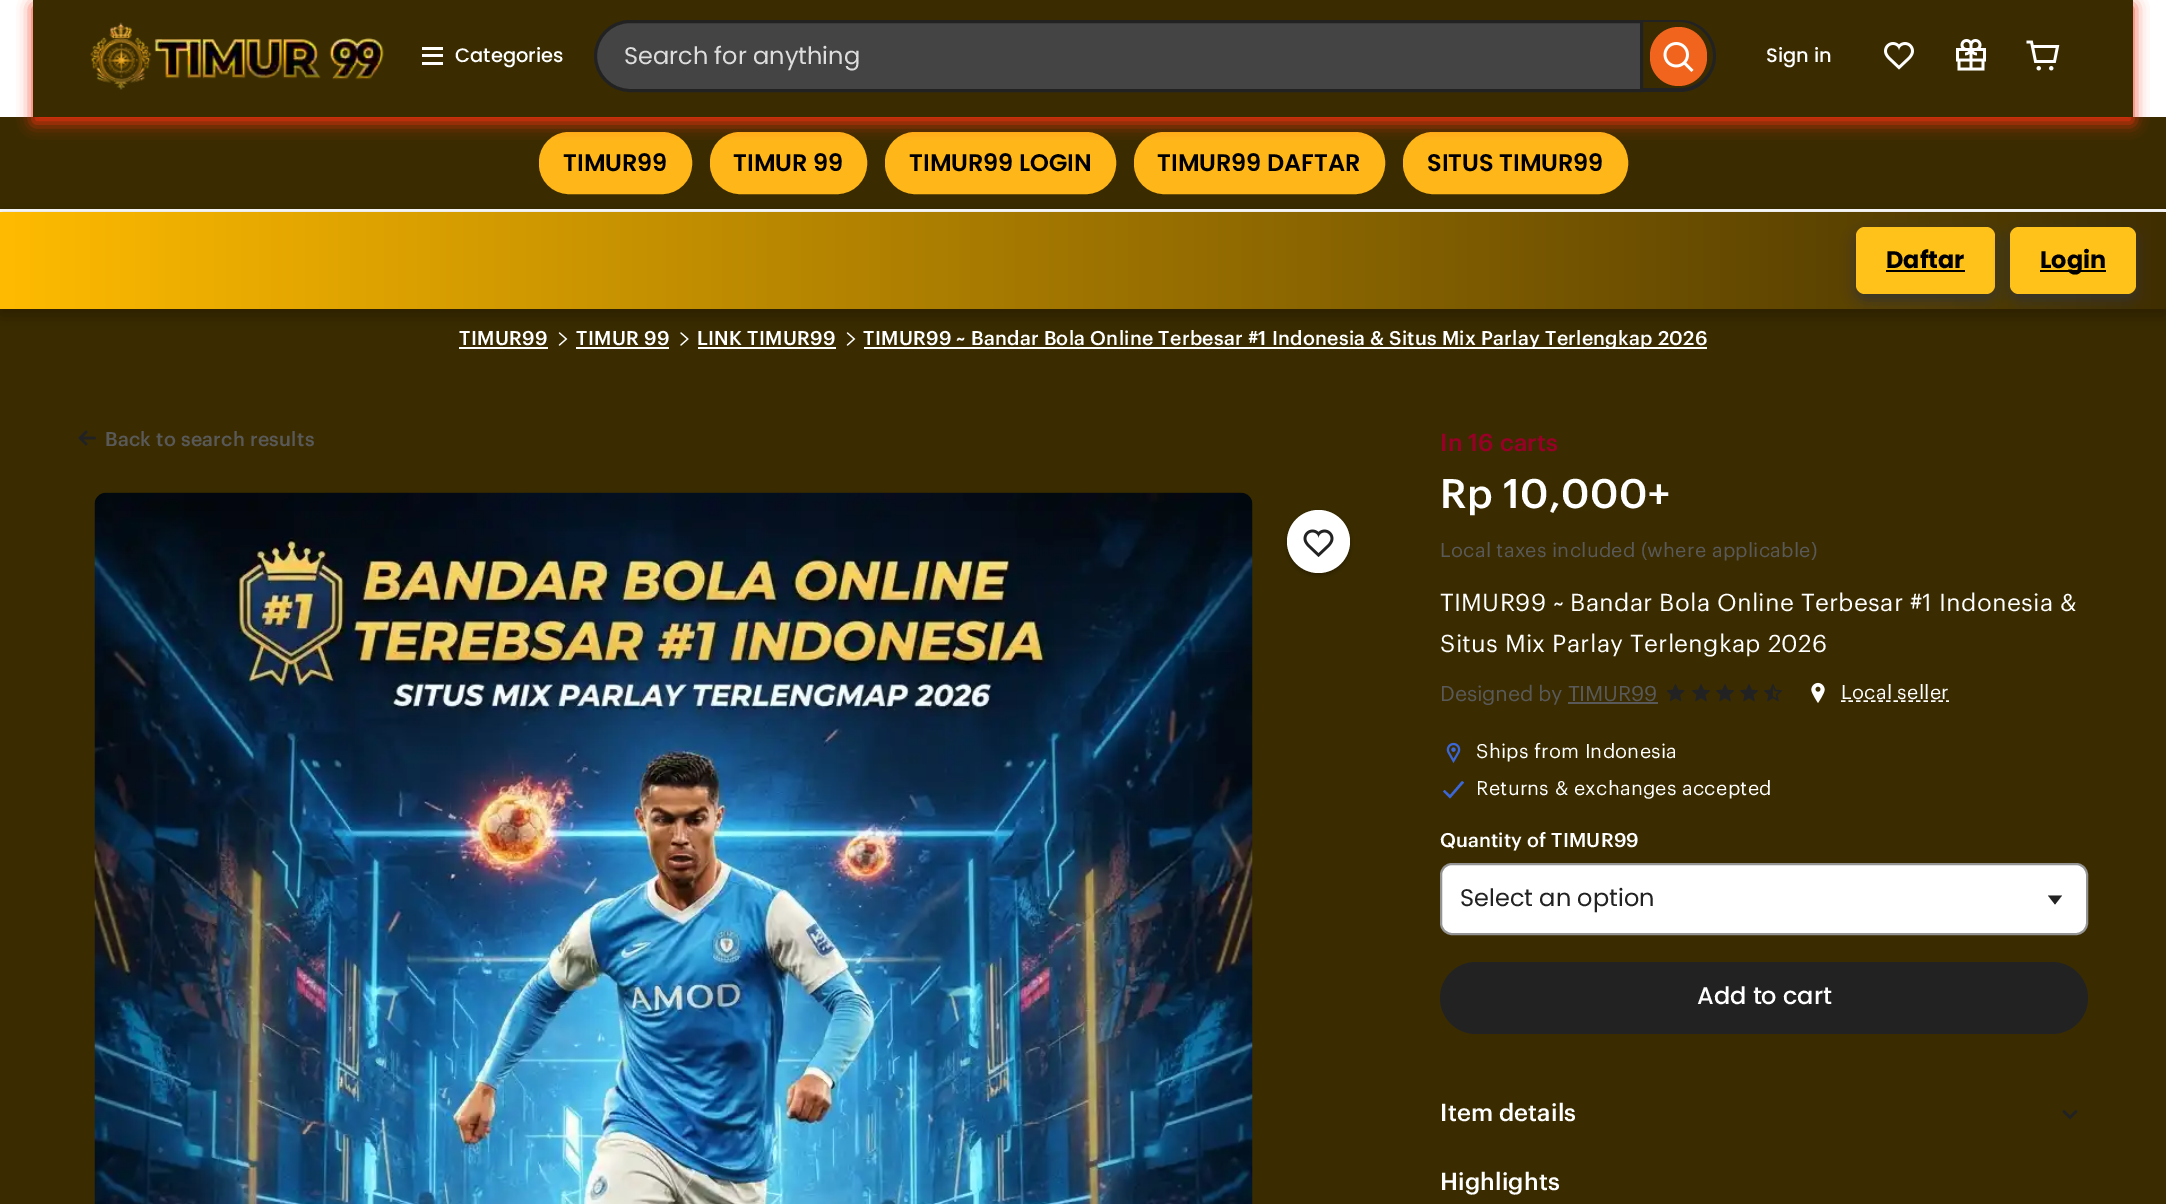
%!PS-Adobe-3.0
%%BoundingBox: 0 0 2166 1204
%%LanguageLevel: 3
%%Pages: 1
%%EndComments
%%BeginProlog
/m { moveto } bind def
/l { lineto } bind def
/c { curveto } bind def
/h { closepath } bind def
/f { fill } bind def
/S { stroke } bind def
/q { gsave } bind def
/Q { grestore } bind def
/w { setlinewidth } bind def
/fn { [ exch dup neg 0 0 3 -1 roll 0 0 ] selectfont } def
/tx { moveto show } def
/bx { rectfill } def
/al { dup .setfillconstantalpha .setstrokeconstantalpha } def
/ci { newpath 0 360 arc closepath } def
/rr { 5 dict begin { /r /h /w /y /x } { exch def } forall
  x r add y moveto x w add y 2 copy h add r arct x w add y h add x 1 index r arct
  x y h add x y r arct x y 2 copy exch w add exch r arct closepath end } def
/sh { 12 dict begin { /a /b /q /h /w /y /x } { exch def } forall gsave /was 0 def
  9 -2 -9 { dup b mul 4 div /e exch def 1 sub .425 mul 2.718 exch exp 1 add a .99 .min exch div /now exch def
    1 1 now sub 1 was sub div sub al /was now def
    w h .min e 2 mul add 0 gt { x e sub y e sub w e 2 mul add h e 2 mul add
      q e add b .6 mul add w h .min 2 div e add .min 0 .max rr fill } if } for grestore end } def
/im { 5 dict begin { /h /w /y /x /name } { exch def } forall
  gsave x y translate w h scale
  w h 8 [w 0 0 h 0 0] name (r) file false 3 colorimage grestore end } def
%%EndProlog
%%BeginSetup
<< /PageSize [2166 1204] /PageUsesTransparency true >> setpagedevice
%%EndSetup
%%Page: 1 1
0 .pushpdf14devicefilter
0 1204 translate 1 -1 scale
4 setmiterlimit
0.227 0.173 0 setrgbcolor
0 0 2166 1204 bx
1 setgray
0 0 2166 117 bx
1 0.714 0.098 setrgbcolor
540.5 133.5 150 59 28.5 rr q f Q
3 w
S
711.5 133.5 154 59 28.5 rr q f Q
S
886.5 133.5 228 59 28.5 rr q f Q
S
1135.5 133.5 248 59 28.5 rr q f Q
S
1404.5 133.5 222 59 28.5 rr q f Q
S
0.961 0.192 0.059 setrgbcolor
33 6 2100 117 0 7.5 1 sh
0.227 0.173 0 setrgbcolor
33 0 2100 117 bx
(image0.raw) 90 22 294 68 im
1 setgray
422 54 21 3 bx
422 62 21 3 bx
422 47 21 3 bx
/Poppins-Medium 19.5 fn
(Categories) 455 62 tx
0.267 setgray
630 21.5 m 1641.5 21.5 l 1641.5 90.5 l 630 90.5 l 611 90.5 595.5 75 595.5 56 c 595.5 37 611 21.5 630 21.5 c h q f Q
0.133 setgray
S
/Poppins-Regular 24 fn
0.867 setgray
(Search for anything) 624 64 tx
0.133 setgray
1642 20 m 1680 20 l 1700 20 1716 36 1716 56 c 1716 75 1700 92 1680 92 c 1642 92 l h 1642 22 m 1680 22 l 1698 22 1713 37 1713 56 c 1713 74 1698 88 1680 88 c 1642 88 l h eofill
0.945 0.392 0.118 setrgbcolor
1650 27 57 59 28.5 rr f
(image1.raw) 1663 42 31 30 im
/Poppins-Medium 19.5 fn
1 setgray
(Sign in) 1766 62 tx
(image2.raw) 1884 42 30 28 im
(image3.raw) 1956 39 30 32 im
(image4.raw) 2026 40 34 31 im
0 209 2166 3 bx
/Poppins-SemiBold 24 fn
0 setgray
(TIMUR99) 563 171 tx
(TIMUR 99) 733 171 tx
(TIMUR99 LOGIN) 909 171 tx
(TIMUR99 DAFTAR) 1157 171 tx
(SITUS TIMUR99) 1427 171 tx
0 218 2166 97 0 9 0.3 sh
q 0 212 m 2166 212 l 2166 309 l 0 309 l h clip newpath
<< /ShadingType 2 /ColorSpace /DeviceRGB /Coords [0 260 2166 260] /Extend [true true] /Function << /FunctionType 2 /Domain [0 1] /C0 [1 0.733 0] /C1 [0.247 0.18 0] /N 1 >> >> shfill Q
q
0 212 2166 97 rectclip
0.208 0.2 0.188 setrgbcolor
1856 233 139 67 9 7.5 0.94 sh
Q
1 0.761 0.106 setrgbcolor
1856 227 139 67 9 rr f
/Poppins-Bold 24 fn
0 setgray
(Daftar) 1886 268 tx
1886 270 79 2 bx
q
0 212 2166 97 rectclip
0.208 0.2 0.188 setrgbcolor
2010 233 126 67 9 7.5 0.94 sh
Q
1 0.761 0.106 setrgbcolor
2010 227 126 67 9 rr f
0 setgray
2040 270 66 2 bx
(Login) 2040 268 tx
/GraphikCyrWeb-Medium 19.5 fn
1 setgray
459 345 m 0.2 0 (TIMUR99) ashow
459 347 89 2 bx
(image5.raw) 558 332 10 14 im
576 345 m 0.2 0 (TIMUR 99) ashow
576 347 93 2 bx
(image6.raw) 680 332 9 14 im
697 345 m 0.2 0 (LINK TIMUR99) ashow
698 347 138 2 bx
(image5.raw) 846 332 10 14 im
864 347 843 2 bx
863 345 m 0.2 0 (TIMUR99 ~ Bandar Bola Online Terbesar #1 Indonesia & Situs Mix Parlay Terlengkap 2026) ashow
(image7.raw) 78 430 18 16 im
0.349 setgray
105 446 m 0.2 0 (Back to search results) ashow
(image8.raw) 94 492 1159 712 im
0 setgray
1287 512 63 63 31.5 2.5 0.3 sh
1 setgray
1318.5 541.5 31.5 ci f
(image9.raw) 1303 529 31 28 im
/GraphikCyrWeb-Medium 24 fn
0.604 0 0.153 setrgbcolor
1440 451 m 0.1 0 (In 16 carts) ashow
/GraphikCyrWeb-Medium 40.5 fn
1 setgray
1440 508 m 0.25 0 (Rp 10,000+) ashow
/GraphikCyrWeb-Regular 19.5 fn
0.349 setgray
1440 557 m 0.2 0 (Local taxes included \(where applicable\)) ashow
/GraphikCyrWeb-Regular 24 fn
1 setgray
1440 611 m 0.25 0 (TIMUR99 ~ Bandar Bola Online Terbesar #1 Indonesia &) ashow
1440 652 m 0.25 0 (Situs Mix Parlay Terlengkap 2026) ashow
/GraphikCyrWeb-Regular 21 fn
0.349 setgray
1440 701 m -0.25 0 (Designed by TIMUR99) ashow
1568 702 90 2 bx
(image10.raw) 1667 684 18 18 im
(image11.raw) 1692 684 18 18 im
(image11.raw) 1716 684 18 18 im
(image11.raw) 1740 684 18 18 im
(image12.raw) 1764 684 18 18 im
(image13.raw) 1811 682 14 21 im
/GraphikCyrWeb-Regular 19.5 fn
1 setgray
1841 699 m 0.2 0 (Local seller) ashow
1.5 w
[4.5 3] 0 setdash
1841 701 m 1949 701 l S
(image14.raw) 1446 742 15 21 im
1476 758 m 0.2 0 (Ships from Indonesia) ashow
0.231 0.404 0.851 setrgbcolor
1450 798.5 m 1464 782.5 l 1462 781 l 1450 795 l 1444.5 790 l 1443 791.5 l h f
1 setgray
1476 795 m 0.2 0 (Returns & exchanges accepted) ashow
/GraphikCyrWeb-Medium 19.5 fn
1440 847 m 0.1 0 (Quantity of TIMUR99) ashow
1441 864 646 70 11 rr q f Q
0.58 setgray
2 w
[] 0 setdash
S
/Poppins-Regular 24 fn
0.133 setgray
(Select an option) 1460 906 tx
2062 895.5 m 2055 904.5 l 2048 895.5 l h f
1440 962 648 72 36 rr f
/Poppins-Medium 24 fn
1 setgray
(Add to cart) 1697 1004 tx
/GraphikCyrWeb-Medium 24 fn
1440 1121 m 0.1 0 (Item details) ashow
(image15.raw) 2062 1110 16 10 im
1440 1190 m 0.1 0 (Highlights) ashow
.poppdf14devicefilter showpage
%%EOF
